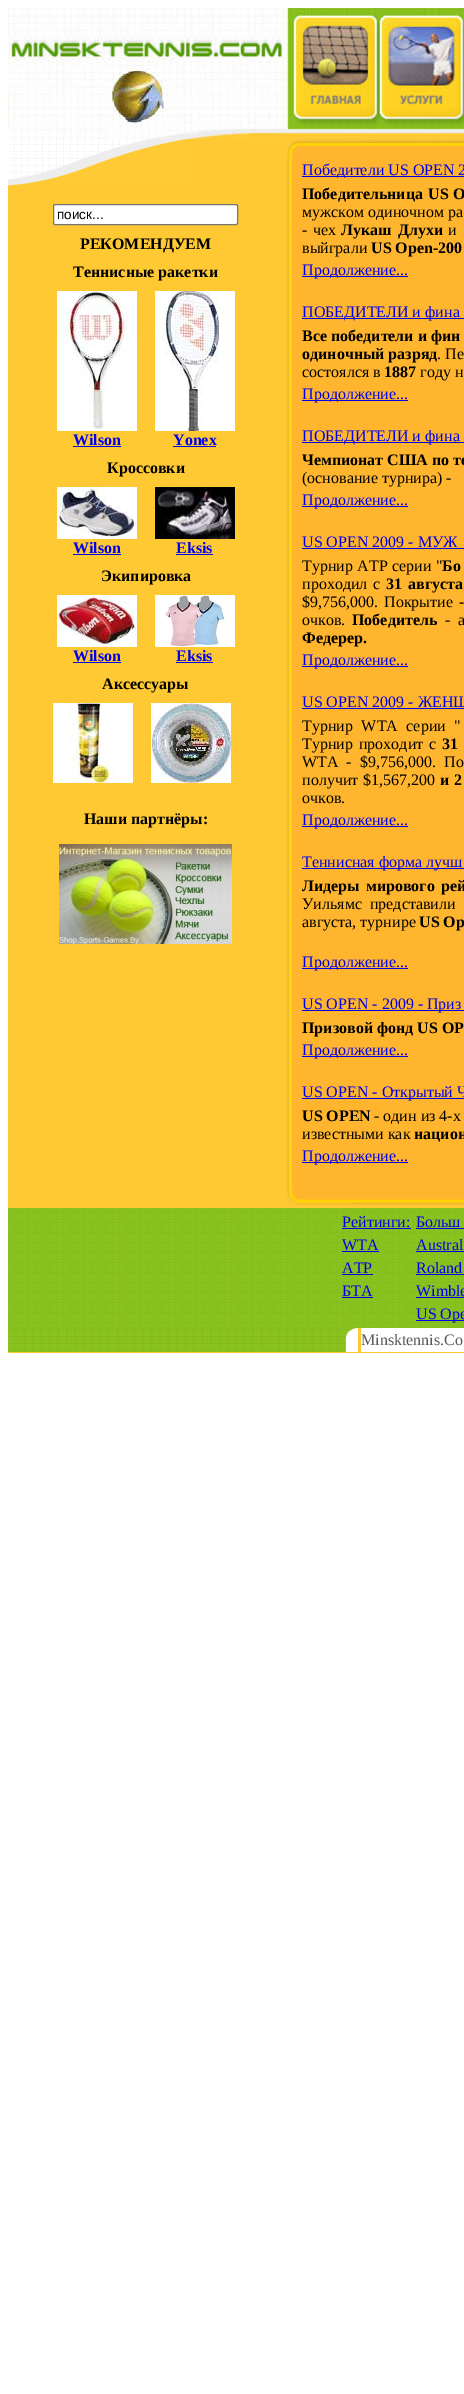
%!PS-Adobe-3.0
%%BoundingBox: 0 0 464 2394
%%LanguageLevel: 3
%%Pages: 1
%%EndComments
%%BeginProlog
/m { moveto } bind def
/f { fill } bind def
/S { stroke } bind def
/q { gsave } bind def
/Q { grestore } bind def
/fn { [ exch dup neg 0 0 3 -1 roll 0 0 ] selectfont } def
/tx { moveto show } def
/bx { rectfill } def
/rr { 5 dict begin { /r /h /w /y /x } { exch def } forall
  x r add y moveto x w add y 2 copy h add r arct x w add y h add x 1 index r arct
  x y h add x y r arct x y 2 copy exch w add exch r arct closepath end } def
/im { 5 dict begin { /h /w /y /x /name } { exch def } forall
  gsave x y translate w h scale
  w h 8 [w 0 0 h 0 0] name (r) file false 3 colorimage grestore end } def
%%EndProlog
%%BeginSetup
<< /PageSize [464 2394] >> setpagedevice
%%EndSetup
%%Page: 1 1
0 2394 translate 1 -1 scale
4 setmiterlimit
1 setgray
0 0 464 2394 bx
1 0.788 0.2 setrgbcolor
8 139 456 1214 bx
(image0.raw) 8 8 456 131 im
(image1.raw) 8 139 180 47 im
1 setgray
53.5 204.5 184 20 1.5 rr q f Q
0.463 setgray
S
/LiberationSans-Regular 13.5 fn
0 setgray
(поиск...) 57 219 tx
/LiberationSerif-Bold 16 fn
(РЕКОМЕНДУЕМ) 80 249 tx
(Теннисные ракетки) 73 277 tx
(image2.raw) 57 291 80 140 im
0 0 0.933 setrgbcolor
(Wilson) 73 445 tx
73 446 48 1 bx
(image3.raw) 155 291 80 140 im
(Yonex) 173 445 tx
173 446 43 1 bx
0 setgray
(Кроссовки) 107 473 tx
(image4.raw) 57 487 80 52 im
0 0 0.933 setrgbcolor
(Wilson) 73 553 tx
73 554 48 1 bx
(image5.raw) 155 487 80 52 im
(Eksis) 176 553 tx
176 554 37 1 bx
0 setgray
(Экипировка) 101 581 tx
(image6.raw) 57 595 80 52 im
0 0 0.933 setrgbcolor
(Wilson) 73 661 tx
73 662 48 1 bx
(image7.raw) 155 595 80 52 im
(Eksis) 176 661 tx
176 662 37 1 bx
0 setgray
(Аксессуары) 102 689 tx
(image8.raw) 53 703 80 80 im
(image9.raw) 151 703 80 80 im
(Наши партнёры:) 84 824 tx
(image10.raw) 59 844 173 100 im
(image11.raw) 284 139 180 19 im
(image12.raw) 284 158 15 1028 im
1 0.71 0.176 setrgbcolor
299 158 165 1028 bx
0 0 0.933 setrgbcolor
302 176 162 1 bx
/LiberationSerif-Regular 16 fn
(Победители US OPEN 2) 302 175 tx
/LiberationSerif-Bold 16 fn
0 setgray
(Победительница) 302 199 tx
428 199 m 1 0 32 (US O) widthshow
/LiberationSerif-Regular 16 fn
(мужском одиночном ра) 302 217 tx
302 235 m 2 0 32 (- чех) widthshow
/LiberationSerif-Bold 16 fn
341 235 m 2 0 32 (Лукаш Длухи) widthshow
/LiberationSerif-Regular 16 fn
448 235 m 2 0 32 (и) widthshow
(выйграли) 302 253 tx
/LiberationSerif-Bold 16 fn
(US Open-200) 371 253 tx
0 0 0.933 setrgbcolor
302 276 106 1 bx
/LiberationSerif-Regular 16 fn
(Продолжение...) 302 275 tx
302 318 162 1 bx
(ПОБЕДИТЕЛИ и фина) 302 317 tx
/LiberationSerif-Bold 16 fn
0 setgray
(Все победители и фин) 302 341 tx
(одиночный разряд) 302 359 tx
/LiberationSerif-Regular 16 fn
(. Пе) 437 359 tx
(состоялся в) 302 377 tx
/LiberationSerif-Bold 16 fn
(1887) 384 377 tx
/LiberationSerif-Regular 16 fn
(году н) 420 377 tx
0 0 0.933 setrgbcolor
302 400 106 1 bx
(Продолжение...) 302 399 tx
302 442 162 1 bx
(ПОБЕДИТЕЛИ и фина) 302 441 tx
/LiberationSerif-Bold 16 fn
0 setgray
(Чемпионат США по те) 302 465 tx
/LiberationSerif-Regular 16 fn
(\(основание турнира\) -) 302 483 tx
0 0 0.933 setrgbcolor
302 506 106 1 bx
(Продолжение...) 302 505 tx
(US OPEN 2009 - МУЖ) 302 547 tx
302 548 162 1 bx
0 setgray
302 571 m 0.5 0 32 (Турнир ATP серии ") widthshow
/LiberationSerif-Bold 16 fn
442 571 m 0.5 0 32 (Бо) widthshow
/LiberationSerif-Regular 16 fn
302 589 m 2 0 32 (проходил с) widthshow
/LiberationSerif-Bold 16 fn
386 589 m 2 0 32 (31 августа) widthshow
/LiberationSerif-Regular 16 fn
($9,756,000) 302 607 tx
374 607 m 2 0 32 (. Покрытие -) widthshow
(очков.) 302 625 tx
/LiberationSerif-Bold 16 fn
(Победитель) 352 625 tx
/LiberationSerif-Regular 16 fn
445 625 m 4 0 32 (- а) widthshow
/LiberationSerif-Bold 16 fn
(Федерер.) 302 643 tx
0 0 0.933 setrgbcolor
302 666 106 1 bx
/LiberationSerif-Regular 16 fn
(Продолжение...) 302 665 tx
(US OPEN 2009 - ЖЕНЩ) 302 707 tx
302 708 162 1 bx
0 setgray
302 731 m 4.5 0 32 (Турнир WTA серии ") widthshow
302 749 m 2 0 32 (Турнир проходит с) widthshow
/LiberationSerif-Bold 16 fn
442 749 m 2 0 32 (31) widthshow
/LiberationSerif-Regular 16 fn
302 767 m 4 0 32 (WTA -) widthshow
($9,756,000) 360 767 tx
432 767 m 4 0 32 (. По) widthshow
(получит) 302 785 tx
($1,567,200) 363 785 tx
/LiberationSerif-Bold 16 fn
440 785 m 1 0 32 (и 2) widthshow
/LiberationSerif-Regular 16 fn
(очков.) 302 803 tx
0 0 0.933 setrgbcolor
302 826 106 1 bx
(Продолжение...) 302 825 tx
302 868 162 1 bx
(Теннисная форма лучш) 302 867 tx
/LiberationSerif-Bold 16 fn
0 setgray
302 891 m 2 0 32 (Лидеры мирового рей) widthshow
/LiberationSerif-Regular 16 fn
302 909 m 4 0 32 (Уильямс представили) widthshow
(августа, турнире) 302 927 tx
/LiberationSerif-Bold 16 fn
(US Op) 419 927 tx
0 0 0.933 setrgbcolor
302 968 106 1 bx
/LiberationSerif-Regular 16 fn
(Продолжение...) 302 967 tx
302 1010 162 1 bx
(US OPEN - 2009 - Приз) 302 1009 tx
/LiberationSerif-Bold 16 fn
0 setgray
(Призовой фонд US OP) 302 1033 tx
0 0 0.933 setrgbcolor
302 1056 106 1 bx
/LiberationSerif-Regular 16 fn
(Продолжение...) 302 1055 tx
302 1098 162 1 bx
(US OPEN - Открытый Ч) 302 1097 tx
/LiberationSerif-Bold 16 fn
0 setgray
(US OPEN) 302 1121 tx
/LiberationSerif-Regular 16 fn
(- один из 4-х) 374 1121 tx
(известными как) 302 1139 tx
/LiberationSerif-Bold 16 fn
(национ) 414 1139 tx
0 0 0.933 setrgbcolor
302 1162 106 1 bx
/LiberationSerif-Regular 16 fn
(Продолжение...) 302 1161 tx
(image13.raw) 286 1186 178 20 im
(image14.raw) 8 1208 456 120 im
(Рейтинги:) 342 1227 tx
342 1228 69 1 bx
(Больш) 416 1227 tx
416 1228 48 1 bx
(WTA) 342 1250 tx
342 1251 37 1 bx
(Austral) 416 1250 tx
416 1251 48 1 bx
(ATP) 342 1273 tx
342 1274 31 1 bx
(Roland) 416 1273 tx
416 1274 48 1 bx
(БТА) 342 1296 tx
342 1297 31 1 bx
(Wimble) 416 1296 tx
416 1297 48 1 bx
416 1320 48 1 bx
(US Ope) 416 1319 tx
(image15.raw) 8 1328 350 24 im
1 setgray
361 1328 103 24 bx
0.345 setgray
(Minsktennis.Co) 361 1345 tx
showpage
%%EOF
